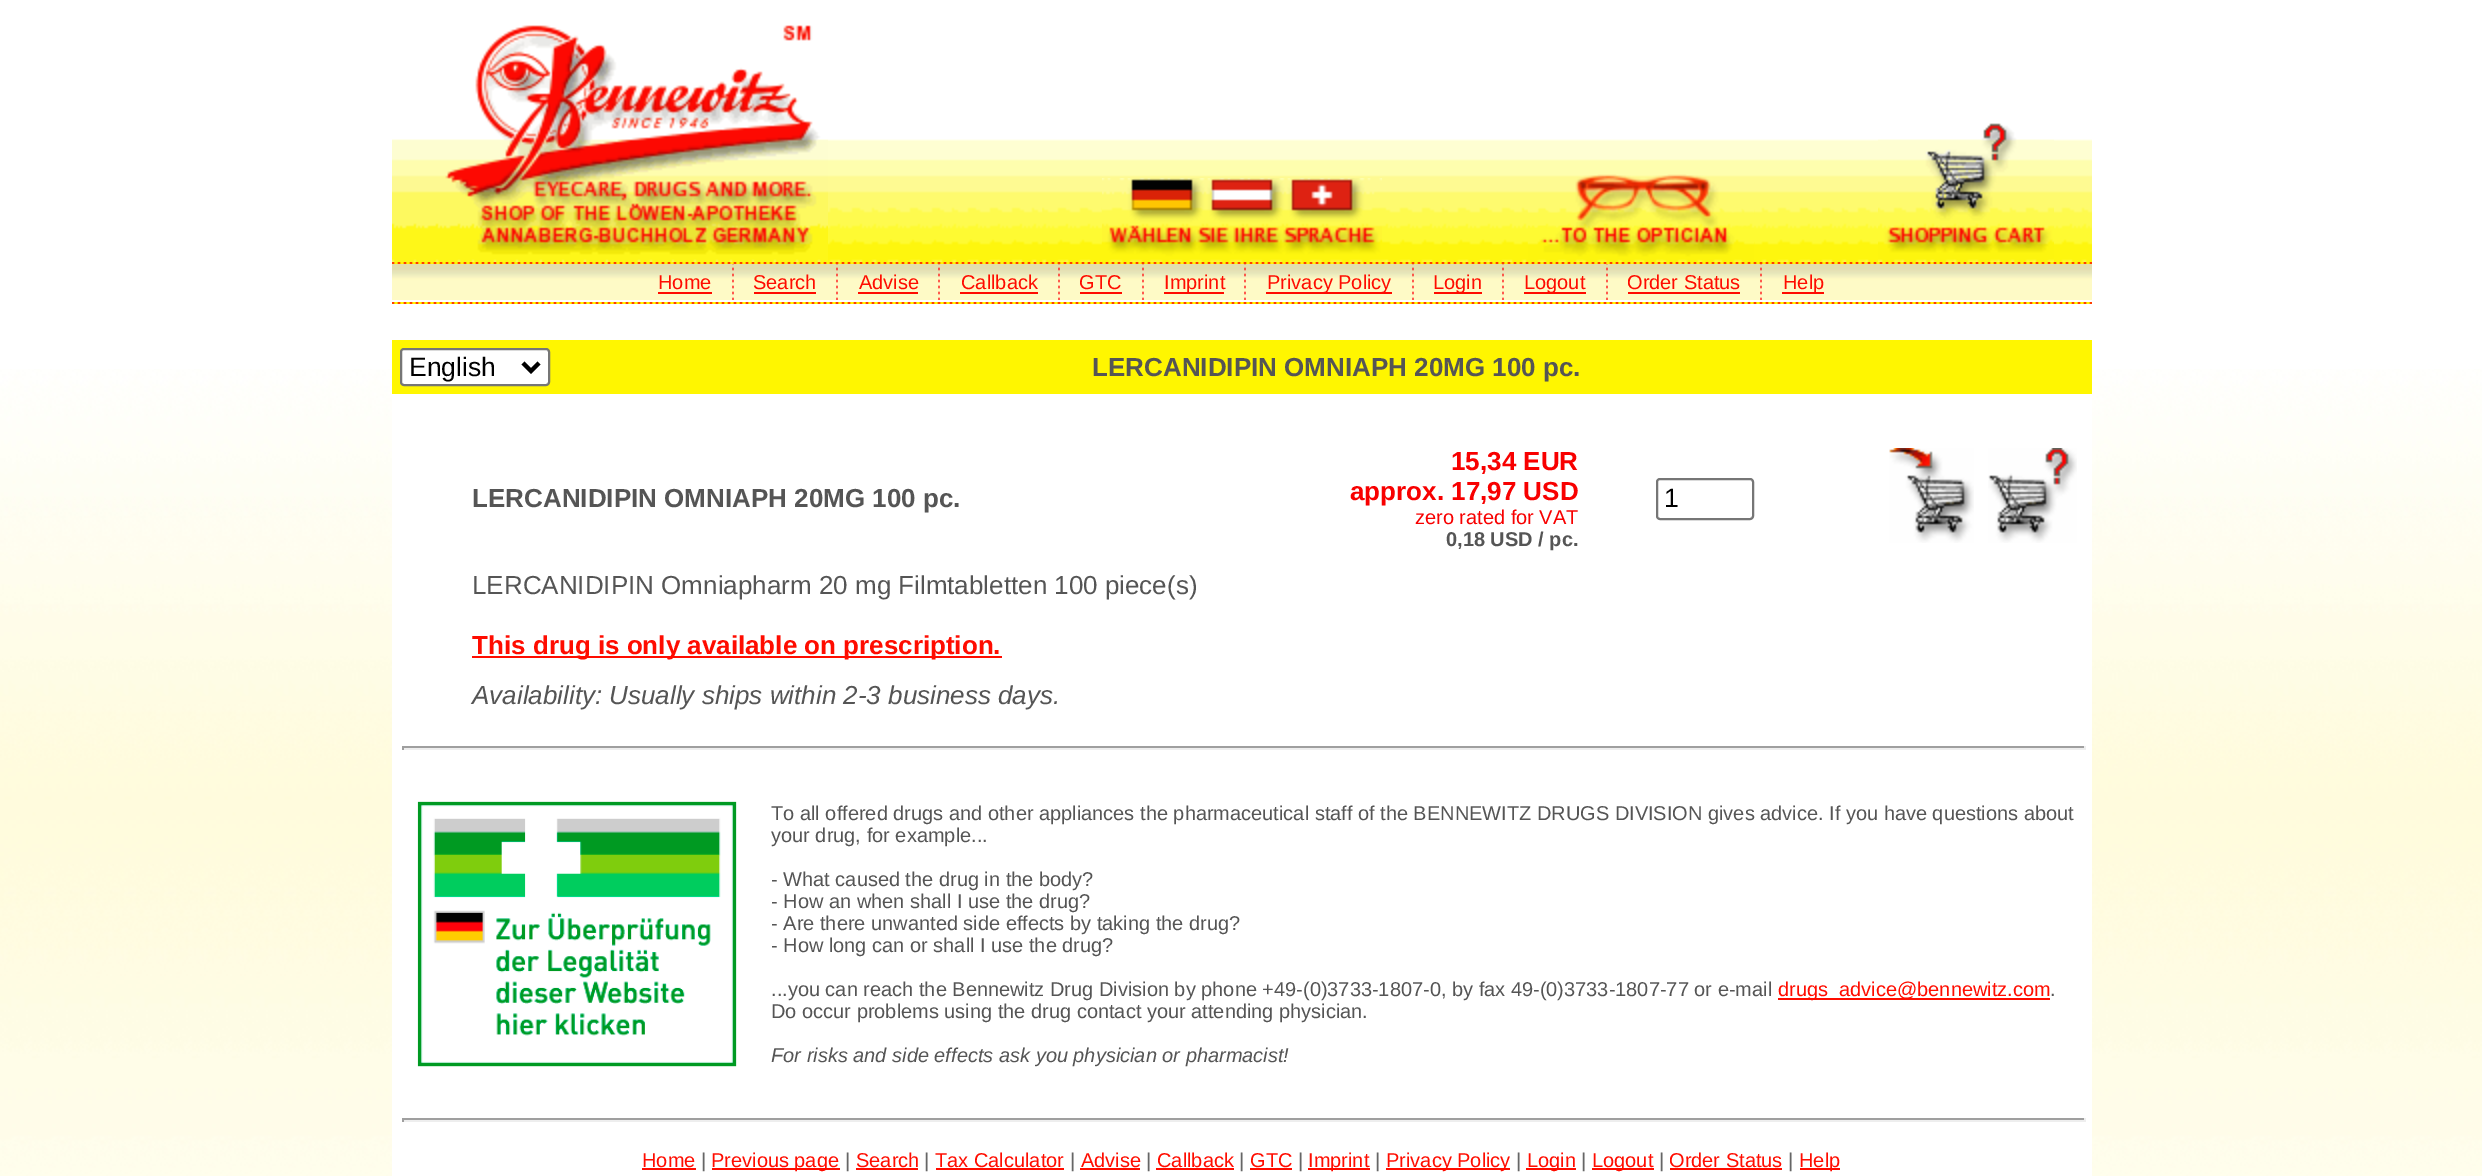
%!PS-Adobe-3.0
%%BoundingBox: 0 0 2482 1176
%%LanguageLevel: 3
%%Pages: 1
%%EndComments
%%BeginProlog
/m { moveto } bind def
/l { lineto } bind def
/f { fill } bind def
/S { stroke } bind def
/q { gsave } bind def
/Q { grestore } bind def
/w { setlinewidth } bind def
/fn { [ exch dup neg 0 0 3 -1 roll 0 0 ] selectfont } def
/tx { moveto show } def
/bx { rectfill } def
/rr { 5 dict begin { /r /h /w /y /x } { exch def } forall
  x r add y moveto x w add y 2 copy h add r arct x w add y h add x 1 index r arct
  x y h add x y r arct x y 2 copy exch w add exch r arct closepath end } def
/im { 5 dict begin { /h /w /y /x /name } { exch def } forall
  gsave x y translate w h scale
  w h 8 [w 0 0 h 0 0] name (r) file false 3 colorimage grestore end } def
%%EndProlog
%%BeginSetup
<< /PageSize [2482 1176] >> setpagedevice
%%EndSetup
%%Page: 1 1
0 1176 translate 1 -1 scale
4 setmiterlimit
1 setgray
0 0 2482 1176 bx
(image0.raw) 0 369 2482 807 im
(image1.raw) 392 139 650 123 im
(image2.raw) 392 25 436 237 im
(image3.raw) 1042 139 400 123 im
(image4.raw) 1102 178 280 84 im
(image3.raw) 1442 139 400 123 im
(image5.raw) 1528 174 226 88 im
(image6.raw) 1842 139 250 123 im
(image7.raw) 1878 123 176 139 im
(image8.raw) 392 262 1700 2 im
(image9.raw) 392 264 1700 36 im
/LiberationSans-Regular 20 fn
1 0.047 0 setrgbcolor
(Home) 658 289 tx
658 292 54 2 bx
(image10.raw) 732 264 2 36 im
(Search) 753 289 tx
754 292 62 2 bx
(image10.raw) 836 264 2 36 im
(Advise) 859 289 tx
858 292 60 2 bx
(image10.raw) 938 264 2 36 im
(Callback) 961 289 tx
960 292 78 2 bx
(image10.raw) 1058 264 2 36 im
(GTC) 1079 289 tx
1080 292 42 2 bx
(image10.raw) 1142 264 2 36 im
1164 292 60 2 bx
(Imprint) 1164 289 tx
(image10.raw) 1244 264 2 36 im
1266 292 126 2 bx
(Privacy Policy) 1267 289 tx
(image10.raw) 1412 264 2 36 im
1434 292 48 2 bx
(Login) 1433 289 tx
(image10.raw) 1502 264 2 36 im
1524 292 62 2 bx
(Logout) 1524 289 tx
(image10.raw) 1606 264 2 36 im
(Order Status) 1627 289 tx
1628 292 112 2 bx
(image10.raw) 1760 264 2 36 im
1782 292 42 2 bx
(Help) 1783 289 tx
(image8.raw) 392 302 1700 2 im
1 0.965 0 setrgbcolor
392 340 1700 54 bx
1 setgray
401 349 148 36 3 rr q f Q
0.463 setgray
2 w
S
0 setgray
4 w
523 363 m 531 371 l 539 363 l S
/LiberationSans-Regular 26.5 fn
(English) 409 376 tx
/LiberationSans-Bold 26 fn
0.333 setgray
(LERCANIDIPIN OMNIAPH 20MG 100 pc.) 1092 376 tx
1 setgray
392 394 1700 782 bx
0.333 setgray
(LERCANIDIPIN OMNIAPH 20MG 100 pc.) 472 507 tx
0.973 0 0 setrgbcolor
(15,34 EUR) 1451 470 tx
(approx. 17,97 USD) 1350 500 tx
/LiberationSans-Regular 20 fn
(zero rated for VAT) 1415 524 tx
/LiberationSans-Bold 20 fn
0.333 setgray
(0,18 USD / pc.) 1446 546 tx
0.463 setgray
2 w
1657 479 96 40 3 rr S
/LiberationSans-Regular 26.5 fn
0 setgray
(1) 1664 507 tx
(image11.raw) 1889 448 85 95 im
(image12.raw) 1988 448 89 95 im
/LiberationSans-Regular 26 fn
0.333 setgray
(LERCANIDIPIN Omniapharm 20 mg Filmtabletten 100 piece\(s\)) 472 594 tx
1 0.047 0 setrgbcolor
472 656 530 2 bx
/LiberationSans-Bold 26 fn
(This drug is only available on prescription.) 472 654 tx
/LiberationSans-Italic 26 fn
0.333 setgray
(Availability: Usually ships within 2-3 business days.) 472 704 tx
0.624 setgray
402 746 1684 2 bx
0.933 setgray
2084 746 2 4 bx
402 748 1684 2 bx
0.624 setgray
402 746 2 4 bx
(image13.raw) 417 801 320 266 im
/LiberationSans-Regular 20 fn
0.333 setgray
(To all offered drugs and other appliances the pharmaceutical staff of the BENNEWITZ DRUGS DIVISION gives advice. If you have questions about) 771 820 tx
(your drug, for example...) 771 842 tx
(- What caused the drug in the body?) 771 886 tx
(- How an when shall I use the drug?) 771 908 tx
(- Are there unwanted side effects by taking the drug?) 771 930 tx
(- How long can or shall I use the drug?) 771 952 tx
(...you can reach the Bennewitz Drug Division by phone +49-\(0\)3733-1807-0, by fax 49-\(0\)3733-1807-77 or e-mail) 771 996 tx
1 0.047 0 setrgbcolor
1778 998 272 2 bx
(drugs_advice@bennewitz.com) 1778 996 tx
0.333 setgray
(.) 2050 996 tx
(Do occur problems using the drug contact your attending physician.) 771 1018 tx
/LiberationSans-Italic 20 fn
(For risks and side effects ask you physician or pharmacist!) 771 1062 tx
0.624 setgray
402 1118 1684 2 bx
0.933 setgray
2084 1118 2 4 bx
402 1120 1684 2 bx
0.624 setgray
402 1118 2 4 bx
/LiberationSans-Regular 20 fn
1 0.047 0 setrgbcolor
(Home) 642 1167 tx
642 1168 54 2 bx
0.4 setgray
(|) 701 1167 tx
1 0.047 0 setrgbcolor
712 1168 128 2 bx
(Previous page) 711 1167 tx
0.4 setgray
(|) 845 1167 tx
1 0.047 0 setrgbcolor
(Search) 856 1167 tx
856 1168 62 2 bx
0.4 setgray
(|) 924 1167 tx
1 0.047 0 setrgbcolor
(Tax Calculator) 935 1167 tx
936 1168 128 2 bx
0.4 setgray
(|) 1070 1167 tx
1 0.047 0 setrgbcolor
(Advise) 1081 1167 tx
1080 1168 60 2 bx
0.4 setgray
(|) 1146 1167 tx
1 0.047 0 setrgbcolor
(Callback) 1157 1167 tx
1156 1168 78 2 bx
0.4 setgray
(|) 1239 1167 tx
1 0.047 0 setrgbcolor
(GTC) 1250 1167 tx
1250 1168 42 2 bx
0.4 setgray
(|) 1298 1167 tx
1 0.047 0 setrgbcolor
1308 1168 62 2 bx
(Imprint) 1308 1167 tx
0.4 setgray
(|) 1375 1167 tx
1 0.047 0 setrgbcolor
1386 1168 124 2 bx
(Privacy Policy) 1386 1167 tx
0.4 setgray
(|) 1516 1167 tx
1 0.047 0 setrgbcolor
1526 1168 50 2 bx
(Login) 1527 1167 tx
0.4 setgray
(|) 1581 1167 tx
1 0.047 0 setrgbcolor
1592 1168 62 2 bx
(Logout) 1592 1167 tx
0.4 setgray
(|) 1659 1167 tx
1 0.047 0 setrgbcolor
(Order Status) 1669 1167 tx
1670 1168 112 2 bx
0.4 setgray
(|) 1788 1167 tx
1 0.047 0 setrgbcolor
1800 1168 40 2 bx
(Help) 1799 1167 tx
showpage
%%EOF
